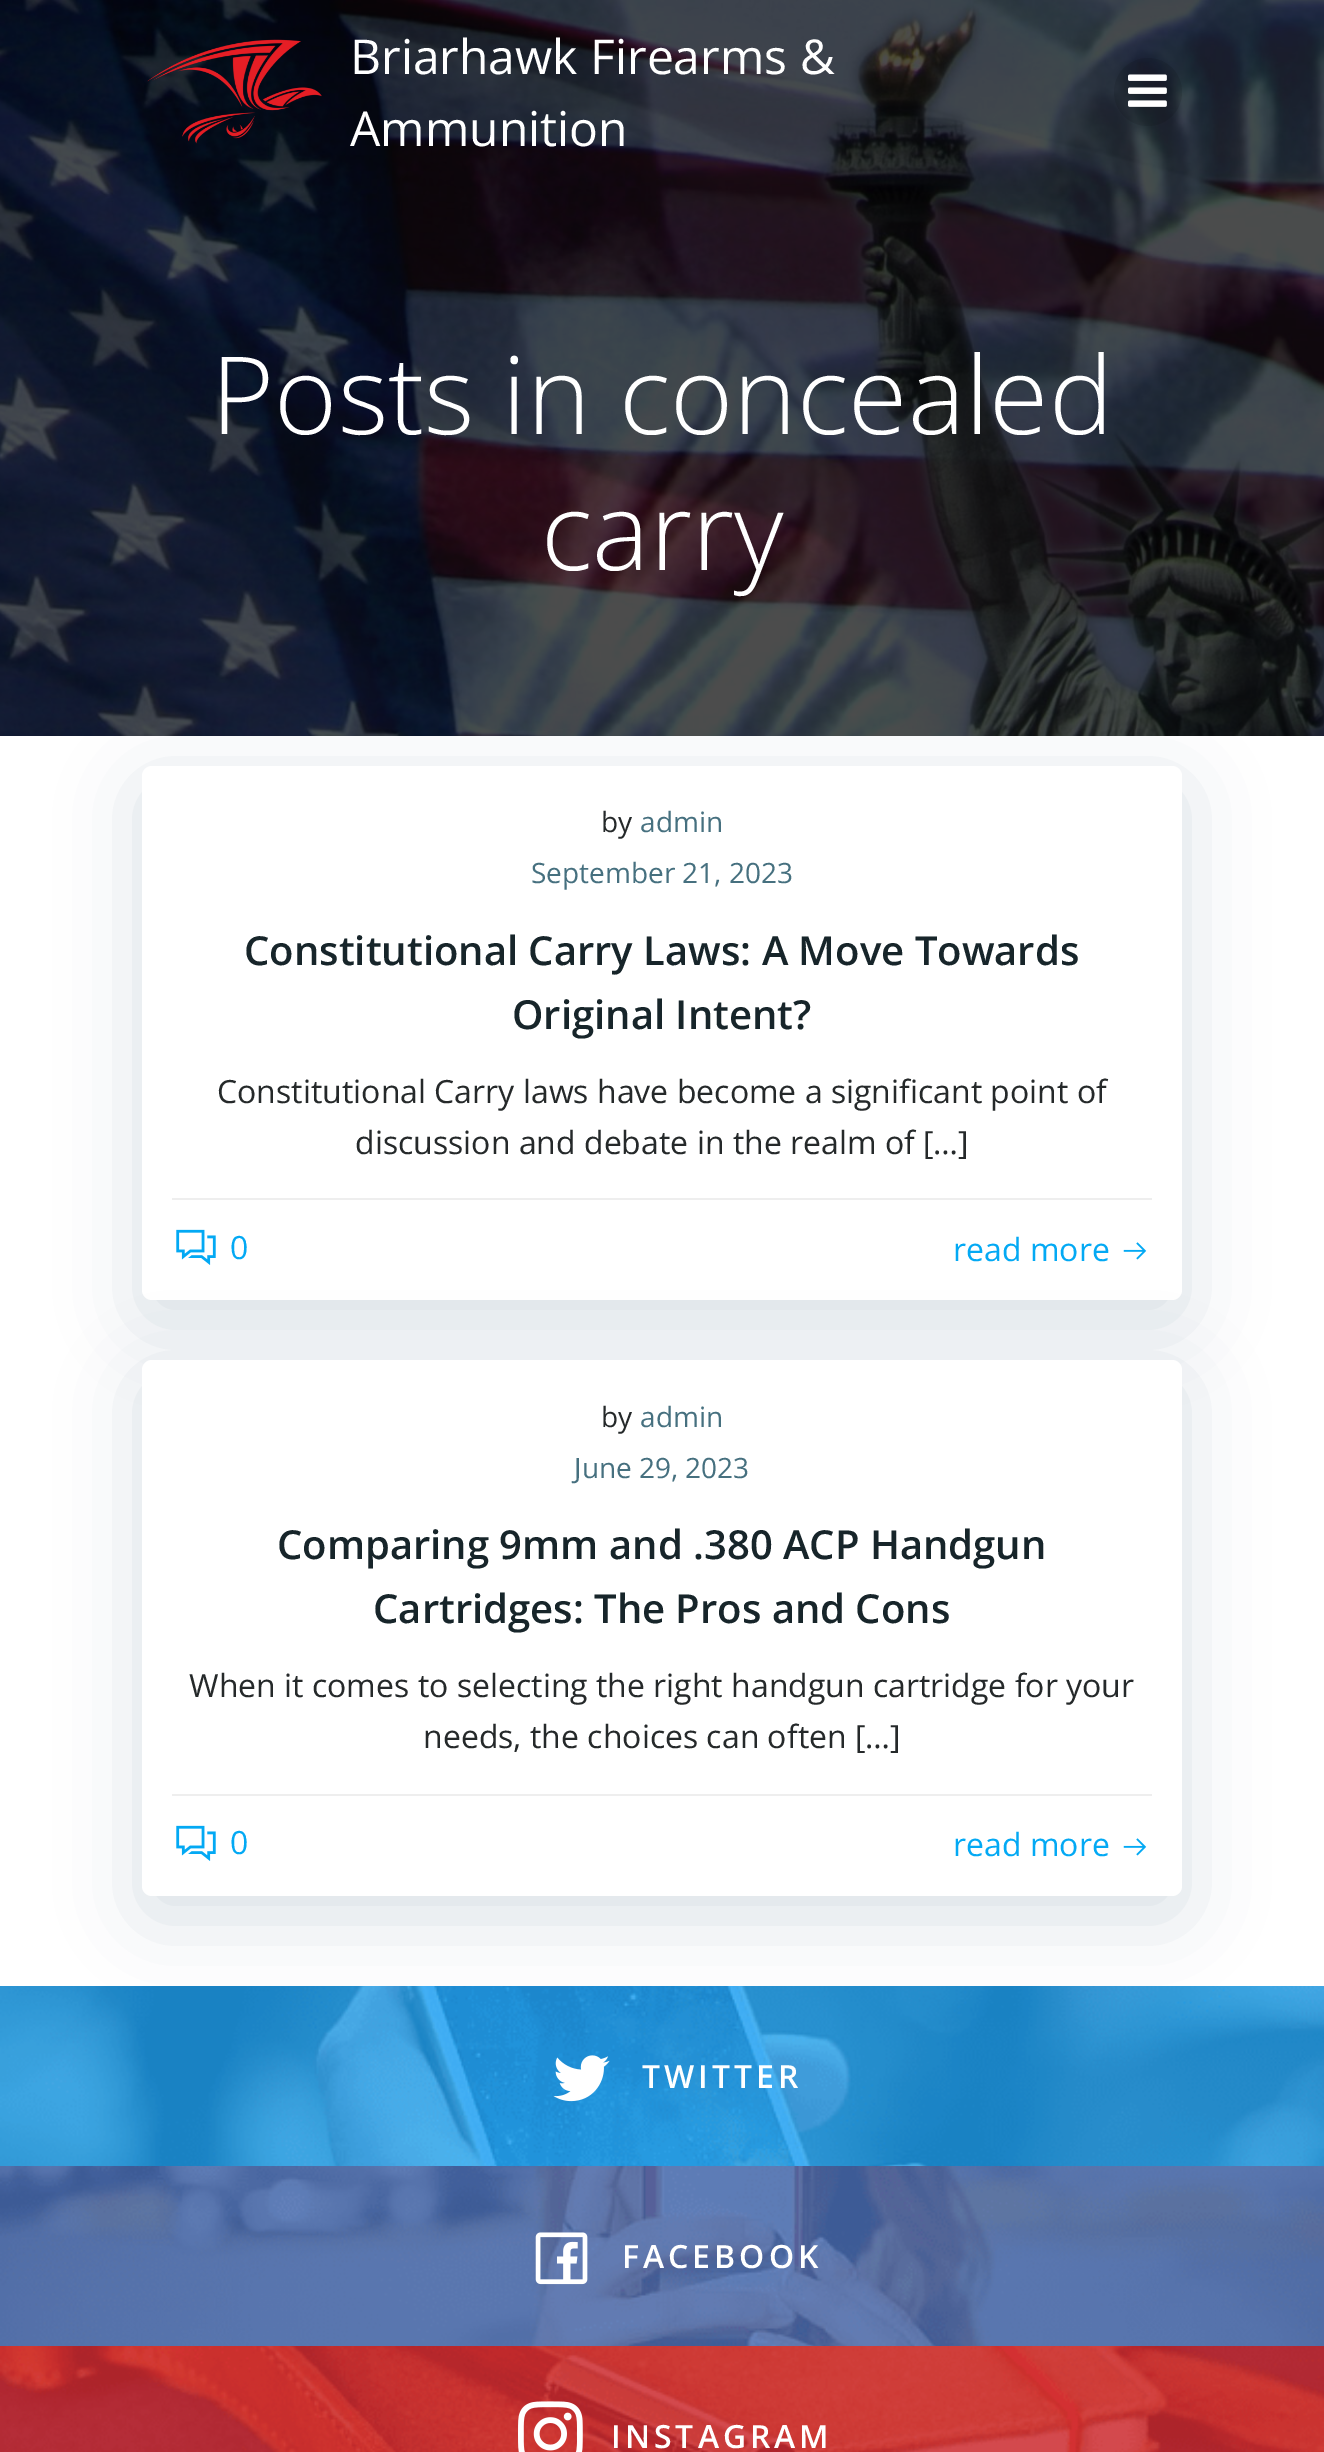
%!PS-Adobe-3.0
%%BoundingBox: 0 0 1324 2452
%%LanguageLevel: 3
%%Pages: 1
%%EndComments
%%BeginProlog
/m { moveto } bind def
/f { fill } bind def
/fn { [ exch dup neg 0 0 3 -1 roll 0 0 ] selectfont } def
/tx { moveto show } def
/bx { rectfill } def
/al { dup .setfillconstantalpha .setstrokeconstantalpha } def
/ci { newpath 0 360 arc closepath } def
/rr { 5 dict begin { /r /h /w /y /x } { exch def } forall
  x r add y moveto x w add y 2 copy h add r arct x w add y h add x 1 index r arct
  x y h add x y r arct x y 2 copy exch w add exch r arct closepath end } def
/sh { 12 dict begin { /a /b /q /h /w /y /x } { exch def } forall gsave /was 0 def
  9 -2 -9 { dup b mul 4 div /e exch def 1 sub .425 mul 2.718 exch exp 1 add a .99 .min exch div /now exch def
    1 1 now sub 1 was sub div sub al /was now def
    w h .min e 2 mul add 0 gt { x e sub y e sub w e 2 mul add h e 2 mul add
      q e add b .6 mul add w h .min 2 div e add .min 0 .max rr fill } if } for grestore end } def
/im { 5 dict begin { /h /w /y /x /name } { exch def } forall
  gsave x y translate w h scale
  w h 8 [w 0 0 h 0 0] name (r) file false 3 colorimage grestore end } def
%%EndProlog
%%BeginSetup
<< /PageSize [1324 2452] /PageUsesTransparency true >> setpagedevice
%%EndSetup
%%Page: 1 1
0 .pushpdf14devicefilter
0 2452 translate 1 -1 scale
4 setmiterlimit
1 setgray
0 0 1324 2452 bx
(image2.raw) 0 0 1324 736 im
(image0.raw) 147 39 175 105 im
/OpenSans-Regular 48 fn
(Briarhawk Firearms &) 350 74 tx
(Ammunition) 350 146 tx
0.1 al
0 setgray
1148 92 34 ci f
1 al
(image1.raw) 1128 74 39 33 im
/OpenSans-Light 108 fn
1 setgray
(Posts in concealed) 211 434 tx
(carry) 541 570 tx
0.004 0.2 0.29 setrgbcolor
142 786 1040 534 10 40 0.15 sh
1 setgray
142 766 1040 534 10 rr f
0.933 setgray
172 1198 980 2 bx
/OpenSans-Regular 28 fn
0.145 0.161 0.165 setrgbcolor
(by) 601 832 tx
0.275 0.439 0.498 setrgbcolor
(admin) 640 832 tx
(September 21, 2023) 531 883 tx
/OpenSans-SemiBold 40 fn
0.09 0.145 0.165 setrgbcolor
(Constitutional Carry Laws: A Move Towards) 244 965 tx
(Original Intent?) 512 1029 tx
/OpenSans-Regular 32 fn
0.145 0.161 0.165 setrgbcolor
(Constitutional Carry laws have become a significant point of) 217 1103 tx
(discussion and debate in the realm of […]) 355 1154 tx
(image3.raw) 176 1229 40 36 im
0.012 0.663 0.957 setrgbcolor
(0) 230 1259 tx
(read more) 953 1261 tx
(image4.raw) 1123 1242 24 18 im
0.004 0.2 0.29 setrgbcolor
142 1380 1040 536 10 40 0.15 sh
1 setgray
142 1360 1040 536 10 rr f
0.933 setgray
172 1794 980 2 bx
/OpenSans-Regular 28 fn
0.145 0.161 0.165 setrgbcolor
(by) 601 1427 tx
0.275 0.439 0.498 setrgbcolor
(admin) 640 1427 tx
(June 29, 2023) 574 1478 tx
/OpenSans-SemiBold 40 fn
0.09 0.145 0.165 setrgbcolor
(Comparing 9mm and .380 ACP Handgun) 277 1559 tx
(Cartridges: The Pros and Cons) 373 1623 tx
/OpenSans-Regular 32 fn
0.145 0.161 0.165 setrgbcolor
(When it comes to selecting the right handgun cartridge for your) 189 1697 tx
(needs, the choices can often […]) 423 1748 tx
(image3.raw) 176 1825 40 36 im
0.012 0.663 0.957 setrgbcolor
(0) 230 1854 tx
(read more) 953 1856 tx
(image4.raw) 1123 1838 24 18 im
(image5.raw) 0 1986 1324 180 im
(image6.raw) 553 2055 57 47 im
/OpenSans-SemiBold 32 fn
1 setgray
642 2088 m 4 0 (TWITTER) ashow
(image7.raw) 0 2166 1324 180 im
(image8.raw) 535 2232 53 53 im
622 2268 m 4 0 (FACEBOOK) ashow
(image9.raw) 0 2346 1324 106 im
(image10.raw) 518 2401 65 51 im
611 2448 m 4 0 (INSTAGRAM) ashow
.poppdf14devicefilter showpage
%%EOF
